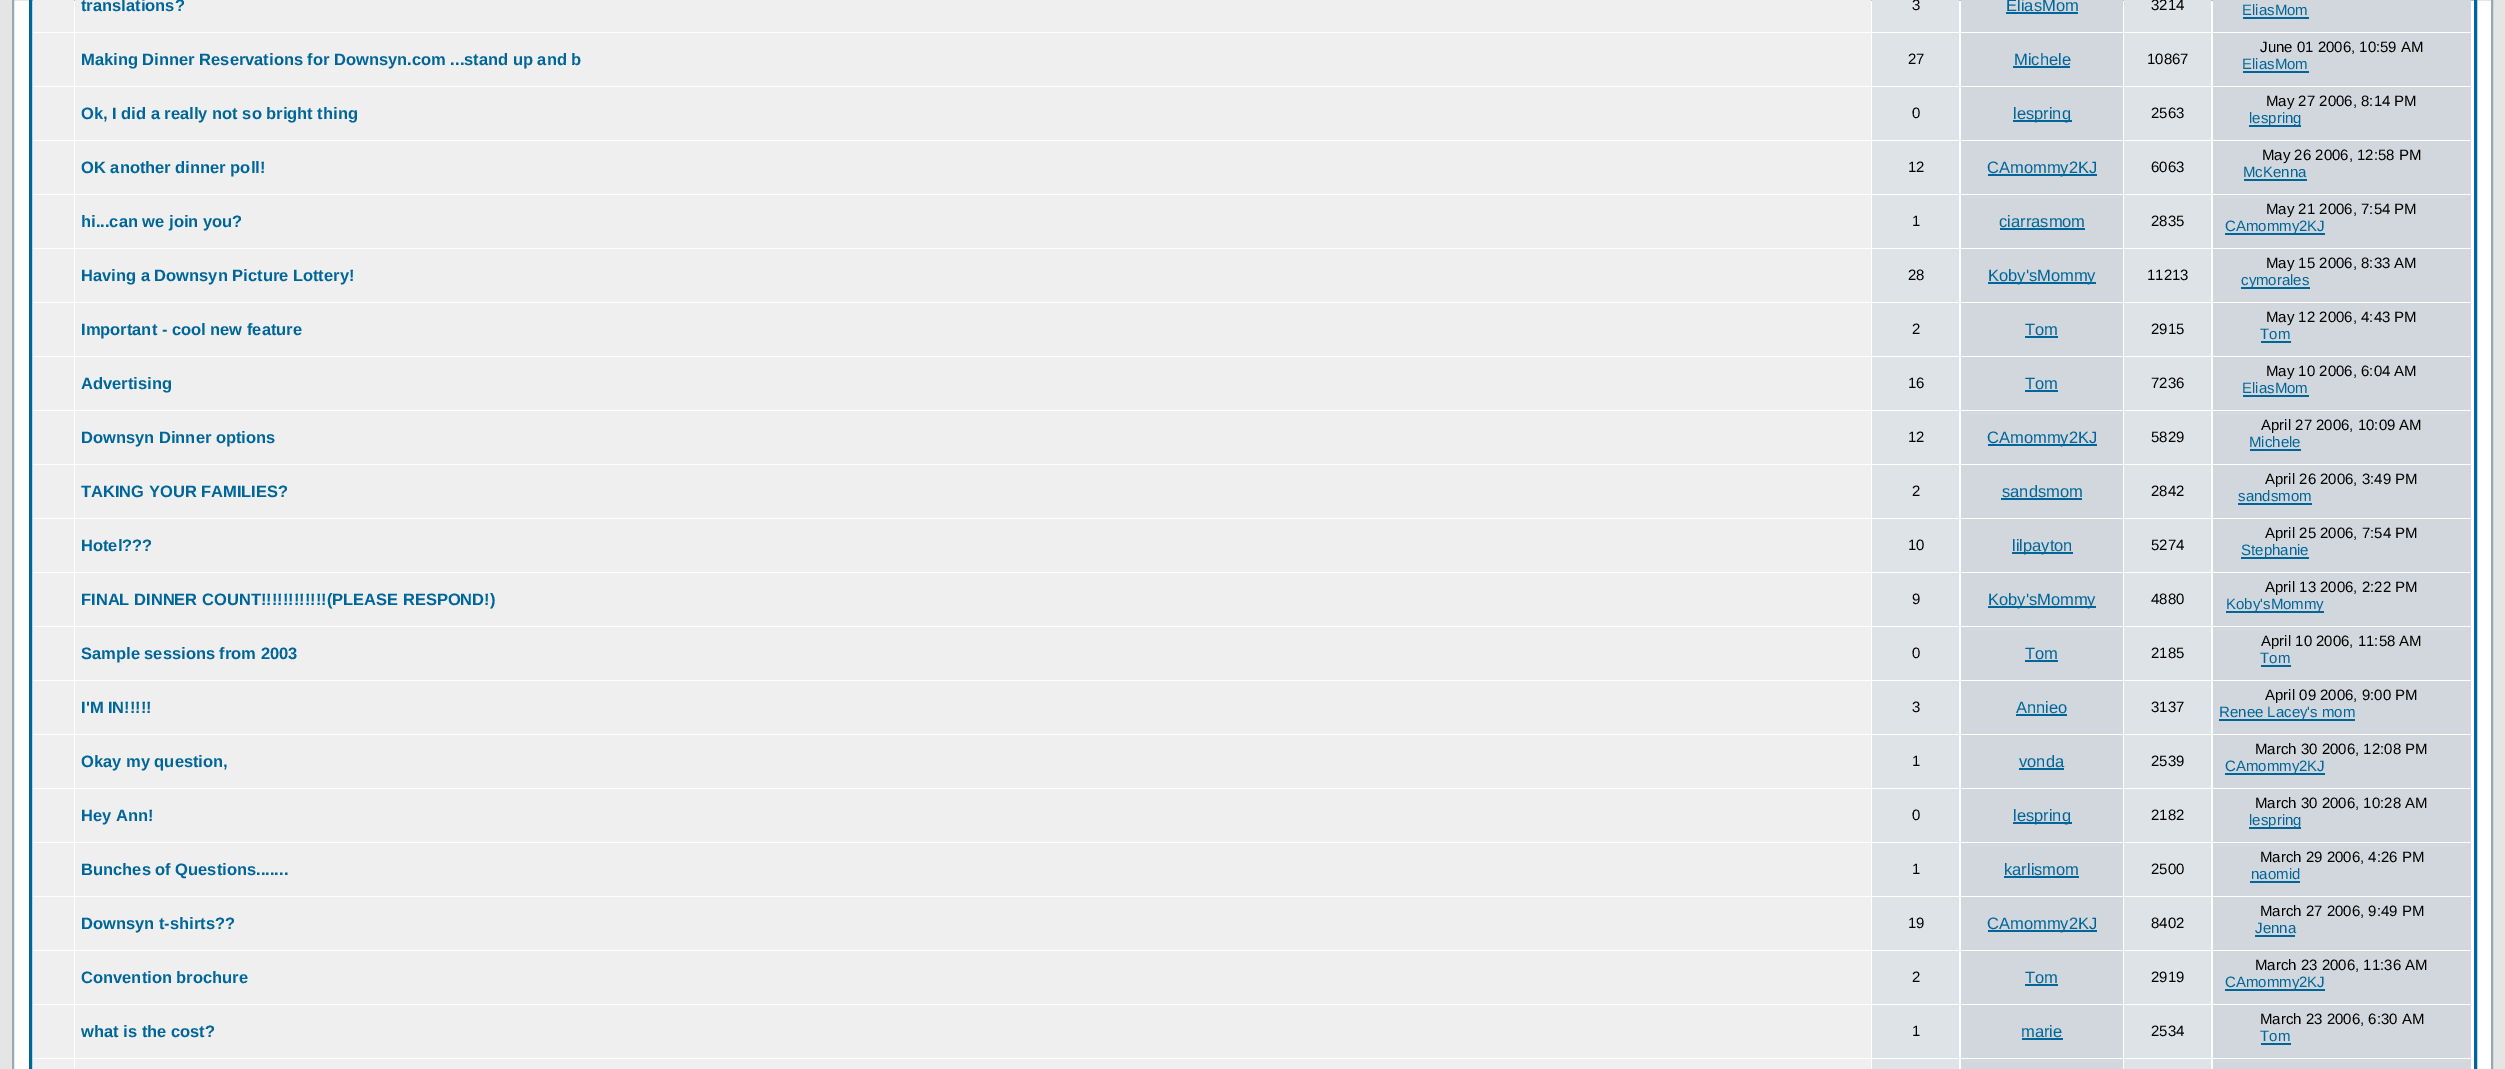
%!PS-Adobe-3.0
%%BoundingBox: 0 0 2505 1069
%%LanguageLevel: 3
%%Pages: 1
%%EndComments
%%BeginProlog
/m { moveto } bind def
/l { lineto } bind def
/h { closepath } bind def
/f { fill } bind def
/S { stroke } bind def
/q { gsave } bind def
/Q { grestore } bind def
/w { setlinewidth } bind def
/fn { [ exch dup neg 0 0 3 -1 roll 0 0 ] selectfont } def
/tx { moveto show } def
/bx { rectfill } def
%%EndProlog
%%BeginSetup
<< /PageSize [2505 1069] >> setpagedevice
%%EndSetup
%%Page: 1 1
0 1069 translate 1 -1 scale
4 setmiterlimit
0.898 setgray
0 0 2505 1069 bx
1 setgray
13 -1 m 2492 -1 l 2492 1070 l 13 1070 l h q f Q
0.596 0.667 0.694 setrgbcolor
2 w
S
0 0.4 0.6 setrgbcolor
3 w
30.5 -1.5 2445 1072 rectstroke
0.937 setgray
33 0 41 32 bx
75 0 1796 32 bx
/LiberationSans-Bold 16.5 fn
0 0.4 0.6 setrgbcolor
(translations?) 81 11 tx
0.871 0.89 0.906 setrgbcolor
1872 0 87 32 bx
/LiberationSans-Regular 15 fn
0 setgray
(3) 1912 10 tx
0.82 0.843 0.863 setrgbcolor
1961 0 162 32 bx
/LiberationSans-Regular 16.5 fn
0 0.4 0.6 setrgbcolor
(EliasMom) 2006 11 tx
2006 12 72 2 bx
0.871 0.89 0.906 setrgbcolor
2124 0 87 32 bx
/LiberationSans-Regular 15 fn
0 setgray
(3214) 2151 10 tx
0.82 0.843 0.863 setrgbcolor
2213 0 258 32 bx
0 0.4 0.6 setrgbcolor
(EliasMom) 2242 15 tx
2243 17 66 2 bx
0.937 setgray
33 33 41 53 bx
75 33 1796 53 bx
/LiberationSans-Bold 16.5 fn
0 0.4 0.6 setrgbcolor
(Making Dinner Reservations for Downsyn.com ...stand up and b) 81 65 tx
0.871 0.89 0.906 setrgbcolor
1872 33 87 53 bx
/LiberationSans-Regular 15 fn
0 setgray
(27) 1908 64 tx
0.82 0.843 0.863 setrgbcolor
1961 33 162 53 bx
/LiberationSans-Regular 16.5 fn
0 0.4 0.6 setrgbcolor
(Michele) 2014 65 tx
2013 66 57 2 bx
0.871 0.89 0.906 setrgbcolor
2124 33 87 53 bx
/LiberationSans-Regular 15 fn
0 setgray
(10867) 2147 64 tx
0.82 0.843 0.863 setrgbcolor
2213 33 258 53 bx
0 setgray
(June 01 2006, 10:59 AM) 2260 52 tx
0 0.4 0.6 setrgbcolor
(EliasMom) 2242 69 tx
2243 71 66 2 bx
0.937 setgray
33 87 41 53 bx
75 87 1796 53 bx
/LiberationSans-Bold 16.5 fn
0 0.4 0.6 setrgbcolor
(Ok, I did a really not so bright thing) 81 119 tx
0.871 0.89 0.906 setrgbcolor
1872 87 87 53 bx
/LiberationSans-Regular 15 fn
0 setgray
(0) 1912 118 tx
0.82 0.843 0.863 setrgbcolor
1961 87 162 53 bx
0 0.4 0.6 setrgbcolor
2013 120 59 2 bx
/LiberationSans-Regular 16.5 fn
(lespring) 2013 119 tx
0.871 0.89 0.906 setrgbcolor
2124 87 87 53 bx
/LiberationSans-Regular 15 fn
0 setgray
(2563) 2151 118 tx
0.82 0.843 0.863 setrgbcolor
2213 87 258 53 bx
0 setgray
(May 27 2006, 8:14 PM) 2266 106 tx
0 0.4 0.6 setrgbcolor
2249 125 52 2 bx
(lespring) 2249 123 tx
0.937 setgray
33 141 41 53 bx
75 141 1796 53 bx
/LiberationSans-Bold 16.5 fn
0 0.4 0.6 setrgbcolor
(OK another dinner poll!) 81 173 tx
0.871 0.89 0.906 setrgbcolor
1872 141 87 53 bx
/LiberationSans-Regular 15 fn
0 setgray
(12) 1908 172 tx
0.82 0.843 0.863 setrgbcolor
1961 141 162 53 bx
0 0.4 0.6 setrgbcolor
1988 174 109 2 bx
/LiberationSans-Regular 16.5 fn
(CAmommy2KJ) 1987 173 tx
0.871 0.89 0.906 setrgbcolor
2124 141 87 53 bx
/LiberationSans-Regular 15 fn
0 setgray
(6063) 2151 172 tx
0.82 0.843 0.863 setrgbcolor
2213 141 258 53 bx
0 setgray
(May 26 2006, 12:58 PM) 2262 160 tx
0 0.4 0.6 setrgbcolor
(McKenna) 2243 177 tx
2244 179 63 2 bx
0.937 setgray
33 195 41 53 bx
75 195 1796 53 bx
/LiberationSans-Bold 16.5 fn
0 0.4 0.6 setrgbcolor
(hi...can we join you?) 81 227 tx
0.871 0.89 0.906 setrgbcolor
1872 195 87 53 bx
/LiberationSans-Regular 15 fn
0 setgray
(1) 1912 226 tx
0.82 0.843 0.863 setrgbcolor
1961 195 162 53 bx
/LiberationSans-Regular 16.5 fn
0 0.4 0.6 setrgbcolor
(ciarrasmom) 1999 227 tx
2000 228 85 2 bx
0.871 0.89 0.906 setrgbcolor
2124 195 87 53 bx
/LiberationSans-Regular 15 fn
0 setgray
(2835) 2151 226 tx
0.82 0.843 0.863 setrgbcolor
2213 195 258 53 bx
0 setgray
(May 21 2006, 7:54 PM) 2266 214 tx
0 0.4 0.6 setrgbcolor
2225 233 100 2 bx
(CAmommy2KJ) 2225 231 tx
0.937 setgray
33 249 41 53 bx
75 249 1796 53 bx
/LiberationSans-Bold 16.5 fn
0 0.4 0.6 setrgbcolor
(Having a Downsyn Picture Lottery!) 81 281 tx
0.871 0.89 0.906 setrgbcolor
1872 249 87 53 bx
/LiberationSans-Regular 15 fn
0 setgray
(28) 1908 280 tx
0.82 0.843 0.863 setrgbcolor
1961 249 162 53 bx
0 0.4 0.6 setrgbcolor
1988 282 108 2 bx
/LiberationSans-Regular 16.5 fn
(Koby'sMommy) 1988 281 tx
0.871 0.89 0.906 setrgbcolor
2124 249 87 53 bx
/LiberationSans-Regular 15 fn
0 setgray
(11213) 2147 280 tx
0.82 0.843 0.863 setrgbcolor
2213 249 258 53 bx
0 setgray
(May 15 2006, 8:33 AM) 2266 268 tx
0 0.4 0.6 setrgbcolor
2241 287 69 2 bx
(cymorales) 2241 285 tx
0.937 setgray
33 303 41 53 bx
75 303 1796 53 bx
/LiberationSans-Bold 16.5 fn
0 0.4 0.6 setrgbcolor
(Important - cool new feature) 81 335 tx
0.871 0.89 0.906 setrgbcolor
1872 303 87 53 bx
/LiberationSans-Regular 15 fn
0 setgray
(2) 1912 334 tx
0.82 0.843 0.863 setrgbcolor
1961 303 162 53 bx
/LiberationSans-Regular 16.5 fn
0 0.4 0.6 setrgbcolor
(Tom) 2025 335 tx
2025 336 33 2 bx
0.871 0.89 0.906 setrgbcolor
2124 303 87 53 bx
/LiberationSans-Regular 15 fn
0 setgray
(2915) 2151 334 tx
0.82 0.843 0.863 setrgbcolor
2213 303 258 53 bx
0 setgray
(May 12 2006, 4:43 PM) 2266 322 tx
0 0.4 0.6 setrgbcolor
(Tom) 2260 339 tx
2261 341 30 2 bx
0.937 setgray
33 357 41 53 bx
75 357 1796 53 bx
/LiberationSans-Bold 16.5 fn
0 0.4 0.6 setrgbcolor
(Advertising) 81 389 tx
0.871 0.89 0.906 setrgbcolor
1872 357 87 53 bx
/LiberationSans-Regular 15 fn
0 setgray
(16) 1908 388 tx
0.82 0.843 0.863 setrgbcolor
1961 357 162 53 bx
/LiberationSans-Regular 16.5 fn
0 0.4 0.6 setrgbcolor
(Tom) 2025 389 tx
2025 390 33 2 bx
0.871 0.89 0.906 setrgbcolor
2124 357 87 53 bx
/LiberationSans-Regular 15 fn
0 setgray
(7236) 2151 388 tx
0.82 0.843 0.863 setrgbcolor
2213 357 258 53 bx
0 setgray
(May 10 2006, 6:04 AM) 2266 376 tx
0 0.4 0.6 setrgbcolor
(EliasMom) 2242 393 tx
2243 395 66 2 bx
0.937 setgray
33 411 41 53 bx
75 411 1796 53 bx
/LiberationSans-Bold 16.5 fn
0 0.4 0.6 setrgbcolor
(Downsyn Dinner options) 81 443 tx
0.871 0.89 0.906 setrgbcolor
1872 411 87 53 bx
/LiberationSans-Regular 15 fn
0 setgray
(12) 1908 442 tx
0.82 0.843 0.863 setrgbcolor
1961 411 162 53 bx
0 0.4 0.6 setrgbcolor
1988 444 109 2 bx
/LiberationSans-Regular 16.5 fn
(CAmommy2KJ) 1987 443 tx
0.871 0.89 0.906 setrgbcolor
2124 411 87 53 bx
/LiberationSans-Regular 15 fn
0 setgray
(5829) 2151 442 tx
0.82 0.843 0.863 setrgbcolor
2213 411 258 53 bx
0 setgray
(April 27 2006, 10:09 AM) 2261 430 tx
0 0.4 0.6 setrgbcolor
(Michele) 2249 447 tx
2250 449 51 2 bx
0.937 setgray
33 465 41 53 bx
75 465 1796 53 bx
/LiberationSans-Bold 16.5 fn
0 0.4 0.6 setrgbcolor
(TAKING YOUR FAMILIES?) 81 497 tx
0.871 0.89 0.906 setrgbcolor
1872 465 87 53 bx
/LiberationSans-Regular 15 fn
0 setgray
(2) 1912 496 tx
0.82 0.843 0.863 setrgbcolor
1961 465 162 53 bx
/LiberationSans-Regular 16.5 fn
0 0.4 0.6 setrgbcolor
(sandsmom) 2002 497 tx
2001 498 81 2 bx
0.871 0.89 0.906 setrgbcolor
2124 465 87 53 bx
/LiberationSans-Regular 15 fn
0 setgray
(2842) 2151 496 tx
0.82 0.843 0.863 setrgbcolor
2213 465 258 53 bx
0 setgray
(April 26 2006, 3:49 PM) 2265 484 tx
0 0.4 0.6 setrgbcolor
(sandsmom) 2238 501 tx
2238 503 74 2 bx
0.937 setgray
33 519 41 53 bx
75 519 1796 53 bx
/LiberationSans-Bold 16.5 fn
0 0.4 0.6 setrgbcolor
(Hotel???) 81 551 tx
0.871 0.89 0.906 setrgbcolor
1872 519 87 53 bx
/LiberationSans-Regular 15 fn
0 setgray
(10) 1908 550 tx
0.82 0.843 0.863 setrgbcolor
1961 519 162 53 bx
0 0.4 0.6 setrgbcolor
2012 552 61 2 bx
/LiberationSans-Regular 16.5 fn
(lilpayton) 2012 551 tx
0.871 0.89 0.906 setrgbcolor
2124 519 87 53 bx
/LiberationSans-Regular 15 fn
0 setgray
(5274) 2151 550 tx
0.82 0.843 0.863 setrgbcolor
2213 519 258 53 bx
0 setgray
(April 25 2006, 7:54 PM) 2265 538 tx
0 0.4 0.6 setrgbcolor
2241 557 68 2 bx
(Stephanie) 2241 555 tx
0.937 setgray
33 573 41 53 bx
75 573 1796 53 bx
/LiberationSans-Bold 16.5 fn
0 0.4 0.6 setrgbcolor
(FINAL DINNER COUNT!!!!!!!!!!!!\(PLEASE RESPOND!\)) 81 605 tx
0.871 0.89 0.906 setrgbcolor
1872 573 87 53 bx
/LiberationSans-Regular 15 fn
0 setgray
(9) 1912 604 tx
0.82 0.843 0.863 setrgbcolor
1961 573 162 53 bx
0 0.4 0.6 setrgbcolor
1988 606 108 2 bx
/LiberationSans-Regular 16.5 fn
(Koby'sMommy) 1988 605 tx
0.871 0.89 0.906 setrgbcolor
2124 573 87 53 bx
/LiberationSans-Regular 15 fn
0 setgray
(4880) 2151 604 tx
0.82 0.843 0.863 setrgbcolor
2213 573 258 53 bx
0 setgray
(April 13 2006, 2:22 PM) 2265 592 tx
0 0.4 0.6 setrgbcolor
2226 611 98 2 bx
(Koby'sMommy) 2226 609 tx
0.937 setgray
33 627 41 53 bx
75 627 1796 53 bx
/LiberationSans-Bold 16.5 fn
0 0.4 0.6 setrgbcolor
(Sample sessions from 2003) 81 659 tx
0.871 0.89 0.906 setrgbcolor
1872 627 87 53 bx
/LiberationSans-Regular 15 fn
0 setgray
(0) 1912 658 tx
0.82 0.843 0.863 setrgbcolor
1961 627 162 53 bx
/LiberationSans-Regular 16.5 fn
0 0.4 0.6 setrgbcolor
(Tom) 2025 659 tx
2025 660 33 2 bx
0.871 0.89 0.906 setrgbcolor
2124 627 87 53 bx
/LiberationSans-Regular 15 fn
0 setgray
(2185) 2151 658 tx
0.82 0.843 0.863 setrgbcolor
2213 627 258 53 bx
0 setgray
(April 10 2006, 11:58 AM) 2261 646 tx
0 0.4 0.6 setrgbcolor
(Tom) 2260 663 tx
2261 665 30 2 bx
0.937 setgray
33 681 41 53 bx
75 681 1796 53 bx
/LiberationSans-Bold 16.5 fn
0 0.4 0.6 setrgbcolor
(I'M IN!!!!!) 81 713 tx
0.871 0.89 0.906 setrgbcolor
1872 681 87 53 bx
/LiberationSans-Regular 15 fn
0 setgray
(3) 1912 712 tx
0.82 0.843 0.863 setrgbcolor
1961 681 162 53 bx
/LiberationSans-Regular 16.5 fn
0 0.4 0.6 setrgbcolor
(Annieo) 2016 713 tx
2016 714 51 2 bx
0.871 0.89 0.906 setrgbcolor
2124 681 87 53 bx
/LiberationSans-Regular 15 fn
0 setgray
(3137) 2151 712 tx
0.82 0.843 0.863 setrgbcolor
2213 681 258 53 bx
0 setgray
(April 09 2006, 9:00 PM) 2265 700 tx
0 0.4 0.6 setrgbcolor
2219 719 136 2 bx
(Renee Lacey's mom) 2219 717 tx
0.937 setgray
33 735 41 53 bx
75 735 1796 53 bx
/LiberationSans-Bold 16.5 fn
0 0.4 0.6 setrgbcolor
(Okay my question,) 81 767 tx
0.871 0.89 0.906 setrgbcolor
1872 735 87 53 bx
/LiberationSans-Regular 15 fn
0 setgray
(1) 1912 766 tx
0.82 0.843 0.863 setrgbcolor
1961 735 162 53 bx
/LiberationSans-Regular 16.5 fn
0 0.4 0.6 setrgbcolor
(vonda) 2019 767 tx
2019 768 45 2 bx
0.871 0.89 0.906 setrgbcolor
2124 735 87 53 bx
/LiberationSans-Regular 15 fn
0 setgray
(2539) 2151 766 tx
0.82 0.843 0.863 setrgbcolor
2213 735 258 53 bx
0 setgray
(March 30 2006, 12:08 PM) 2255 754 tx
0 0.4 0.6 setrgbcolor
2225 773 100 2 bx
(CAmommy2KJ) 2225 771 tx
0.937 setgray
33 789 41 53 bx
75 789 1796 53 bx
/LiberationSans-Bold 16.5 fn
0 0.4 0.6 setrgbcolor
(Hey Ann!) 81 821 tx
0.871 0.89 0.906 setrgbcolor
1872 789 87 53 bx
/LiberationSans-Regular 15 fn
0 setgray
(0) 1912 820 tx
0.82 0.843 0.863 setrgbcolor
1961 789 162 53 bx
0 0.4 0.6 setrgbcolor
2013 822 59 2 bx
/LiberationSans-Regular 16.5 fn
(lespring) 2013 821 tx
0.871 0.89 0.906 setrgbcolor
2124 789 87 53 bx
/LiberationSans-Regular 15 fn
0 setgray
(2182) 2151 820 tx
0.82 0.843 0.863 setrgbcolor
2213 789 258 53 bx
0 setgray
(March 30 2006, 10:28 AM) 2255 808 tx
0 0.4 0.6 setrgbcolor
2249 827 52 2 bx
(lespring) 2249 825 tx
0.937 setgray
33 843 41 53 bx
75 843 1796 53 bx
/LiberationSans-Bold 16.5 fn
0 0.4 0.6 setrgbcolor
(Bunches of Questions.......) 81 875 tx
0.871 0.89 0.906 setrgbcolor
1872 843 87 53 bx
/LiberationSans-Regular 15 fn
0 setgray
(1) 1912 874 tx
0.82 0.843 0.863 setrgbcolor
1961 843 162 53 bx
/LiberationSans-Regular 16.5 fn
0 0.4 0.6 setrgbcolor
(karlismom) 2004 875 tx
2004 876 75 2 bx
0.871 0.89 0.906 setrgbcolor
2124 843 87 53 bx
/LiberationSans-Regular 15 fn
0 setgray
(2500) 2151 874 tx
0.82 0.843 0.863 setrgbcolor
2213 843 258 53 bx
0 setgray
(March 29 2006, 4:26 PM) 2260 862 tx
0 0.4 0.6 setrgbcolor
(naomid) 2251 879 tx
2250 881 50 2 bx
0.937 setgray
33 897 41 53 bx
75 897 1796 53 bx
/LiberationSans-Bold 16.5 fn
0 0.4 0.6 setrgbcolor
(Downsyn t-shirts??) 81 929 tx
0.871 0.89 0.906 setrgbcolor
1872 897 87 53 bx
/LiberationSans-Regular 15 fn
0 setgray
(19) 1908 928 tx
0.82 0.843 0.863 setrgbcolor
1961 897 162 53 bx
0 0.4 0.6 setrgbcolor
1988 930 109 2 bx
/LiberationSans-Regular 16.5 fn
(CAmommy2KJ) 1987 929 tx
0.871 0.89 0.906 setrgbcolor
2124 897 87 53 bx
/LiberationSans-Regular 15 fn
0 setgray
(8402) 2151 928 tx
0.82 0.843 0.863 setrgbcolor
2213 897 258 53 bx
0 setgray
(March 27 2006, 9:49 PM) 2260 916 tx
0 0.4 0.6 setrgbcolor
(Jenna) 2255 933 tx
2255 935 40 2 bx
0.937 setgray
33 951 41 53 bx
75 951 1796 53 bx
/LiberationSans-Bold 16.5 fn
0 0.4 0.6 setrgbcolor
(Convention brochure) 81 983 tx
0.871 0.89 0.906 setrgbcolor
1872 951 87 53 bx
/LiberationSans-Regular 15 fn
0 setgray
(2) 1912 982 tx
0.82 0.843 0.863 setrgbcolor
1961 951 162 53 bx
/LiberationSans-Regular 16.5 fn
0 0.4 0.6 setrgbcolor
(Tom) 2025 983 tx
2025 984 33 2 bx
0.871 0.89 0.906 setrgbcolor
2124 951 87 53 bx
/LiberationSans-Regular 15 fn
0 setgray
(2919) 2151 982 tx
0.82 0.843 0.863 setrgbcolor
2213 951 258 53 bx
0 setgray
(March 23 2006, 11:36 AM) 2255 970 tx
0 0.4 0.6 setrgbcolor
2225 989 100 2 bx
(CAmommy2KJ) 2225 987 tx
0.937 setgray
33 1005 41 53 bx
75 1005 1796 53 bx
/LiberationSans-Bold 16.5 fn
0 0.4 0.6 setrgbcolor
(what is the cost?) 81 1037 tx
0.871 0.89 0.906 setrgbcolor
1872 1005 87 53 bx
/LiberationSans-Regular 15 fn
0 setgray
(1) 1912 1036 tx
0.82 0.843 0.863 setrgbcolor
1961 1005 162 53 bx
/LiberationSans-Regular 16.5 fn
0 0.4 0.6 setrgbcolor
(marie) 2021 1037 tx
2022 1038 41 2 bx
0.871 0.89 0.906 setrgbcolor
2124 1005 87 53 bx
/LiberationSans-Regular 15 fn
0 setgray
(2534) 2151 1036 tx
0.82 0.843 0.863 setrgbcolor
2213 1005 258 53 bx
0 setgray
(March 23 2006, 6:30 AM) 2260 1024 tx
0 0.4 0.6 setrgbcolor
(Tom) 2260 1041 tx
2261 1043 30 2 bx
0.937 setgray
33 1059 41 10 bx
75 1059 1796 10 bx
0.871 0.89 0.906 setrgbcolor
1872 1059 87 10 bx
0.82 0.843 0.863 setrgbcolor
1961 1059 162 10 bx
0.871 0.89 0.906 setrgbcolor
2124 1059 87 10 bx
0.82 0.843 0.863 setrgbcolor
2213 1059 258 10 bx
showpage
%%EOF
